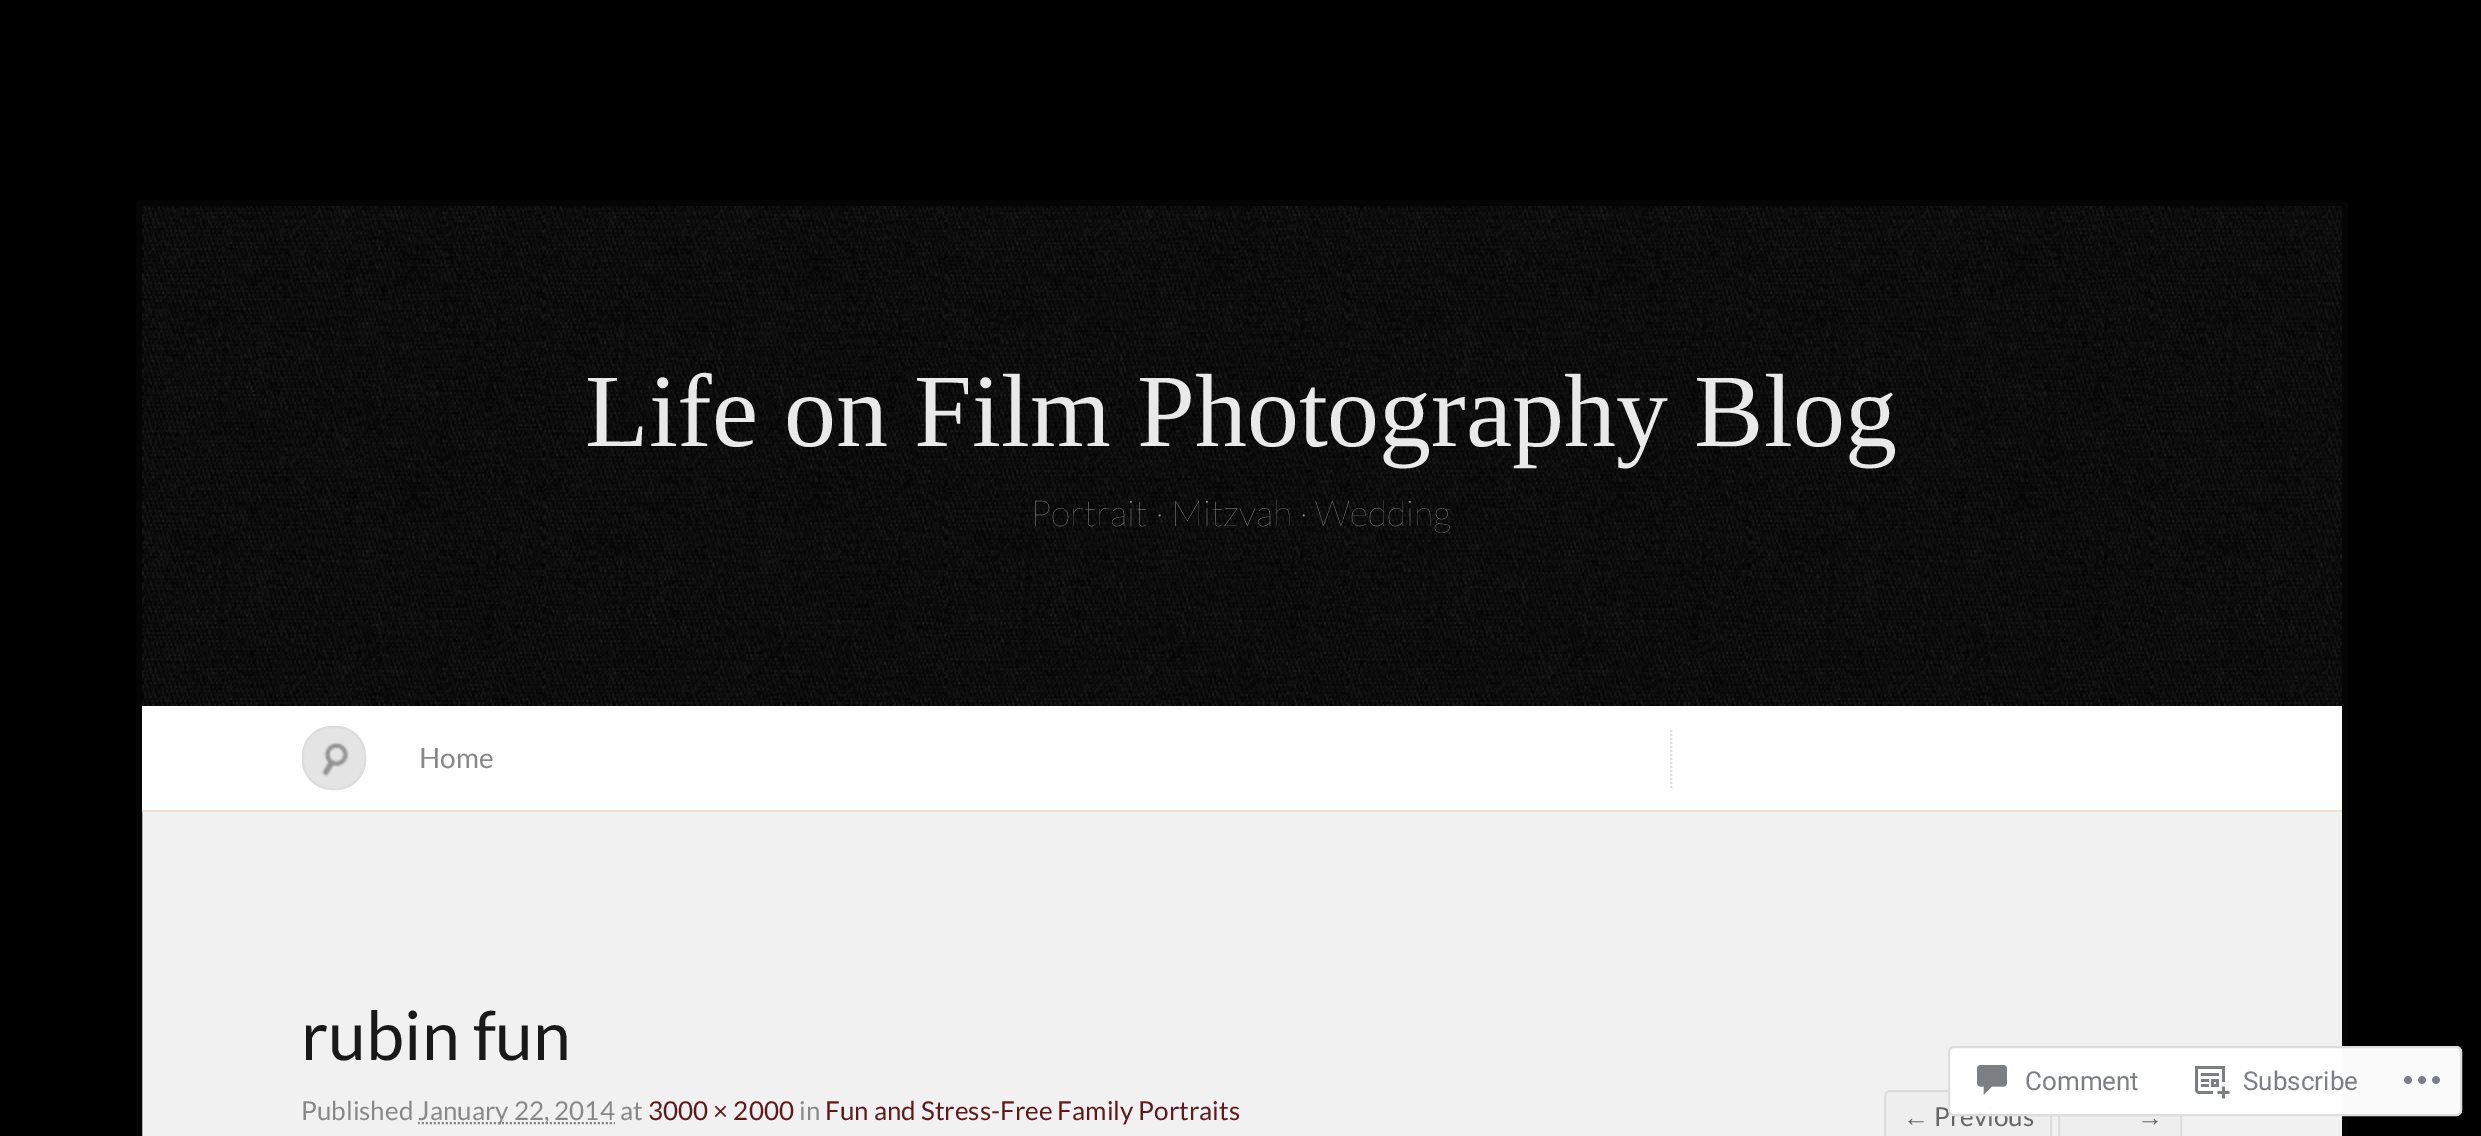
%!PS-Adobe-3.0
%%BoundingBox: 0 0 2481 1136
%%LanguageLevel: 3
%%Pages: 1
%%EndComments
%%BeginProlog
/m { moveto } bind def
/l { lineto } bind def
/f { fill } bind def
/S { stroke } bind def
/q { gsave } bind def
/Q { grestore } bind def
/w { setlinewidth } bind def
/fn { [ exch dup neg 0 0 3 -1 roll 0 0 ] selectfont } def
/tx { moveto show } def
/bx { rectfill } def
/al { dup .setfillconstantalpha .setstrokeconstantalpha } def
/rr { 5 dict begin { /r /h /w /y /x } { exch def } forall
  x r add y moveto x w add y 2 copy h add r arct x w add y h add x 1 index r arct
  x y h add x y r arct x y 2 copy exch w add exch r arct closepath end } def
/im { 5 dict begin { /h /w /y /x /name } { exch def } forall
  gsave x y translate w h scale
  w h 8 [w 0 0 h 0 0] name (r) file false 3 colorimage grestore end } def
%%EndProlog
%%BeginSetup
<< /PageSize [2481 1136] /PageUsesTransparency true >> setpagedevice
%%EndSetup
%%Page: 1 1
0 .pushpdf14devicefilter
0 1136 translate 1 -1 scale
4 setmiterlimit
0 setgray
0 0 2481 1136 bx
0.945 setgray
139 203 2206 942 3 rr q f Q
0.02 setgray
6 w
S
(image0.raw) 142 206 2200 500 im
/LiberationSerif-Regular 104 fn
0.914 setgray
(Life on Film Photography Blog) 585 446 tx
/Lato-Thin 36 fn
0.561 setgray
(Portrait · Mitzvah · Wedding) 1030 526 tx
1 setgray
142 706 2200 104 bx
0.914 0.878 0.82 setrgbcolor
142 810 2200 2 bx
0.894 setgray
302 726 64 64 30 rr f
(image1.raw) 321 742 28 35 im
0.867 setgray
2 w
303 727 62 62 29 rr S
[2 2] 0 setdash
1671 730 m 1671 790 l S
/Lato-Regular 28 fn
0.533 setgray
(Home) 419 768 tx
/Lato-Regular 68 fn
0.098 setgray
(rubin fun) 301 1060 tx
/Lato-Regular 26 fn
0.533 setgray
(Published) 301 1120 tx
418 1123 m 615 1123 l S
(January 22, 2014 at) 418 1120 tx
0.369 0.098 0.102 setrgbcolor
(3000 × 2000) 648 1120 tx
0.533 setgray
(in) 799 1120 tx
0.369 0.098 0.102 setrgbcolor
(Fun and Stress-Free Family Portraits) 825 1120 tx
0.933 setgray
1885 1091 166 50 5 rr q f Q
0.867 setgray
[] 0 setdash
S
/LiberationSans-Regular 26 fn
0.4 setgray
(←) 1903 1126 tx
/Lato-Regular 26 fn
(Previous) 1934 1126 tx
0.933 setgray
2059 1091 122 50 5 rr q f Q
0.867 setgray
S
/LiberationSans-Regular 26 fn
0.4 setgray
(→) 2137 1126 tx
0.98 al
1 setgray
1948 1046 514 70 6 rr f
0.863 0.863 0.871 setrgbcolor
1949 1047 512 68 5 rr S
1 al
(image2.raw) 1977 1065 30 30 im
/Roboto-Regular 26 fn
0.482 0.498 0.518 setrgbcolor
(Comment) 2025 1090 tx
(image3.raw) 2195 1066 35 33 im
(Subscribe) 2243 1090 tx
(image4.raw) 2404 1076 36 8 im
.poppdf14devicefilter showpage
%%EOF
